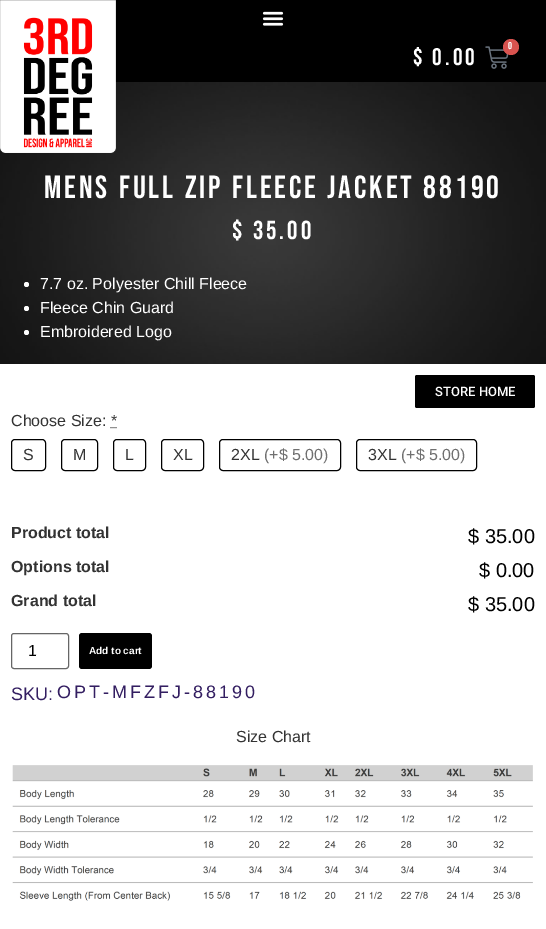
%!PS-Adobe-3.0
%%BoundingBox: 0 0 546 929
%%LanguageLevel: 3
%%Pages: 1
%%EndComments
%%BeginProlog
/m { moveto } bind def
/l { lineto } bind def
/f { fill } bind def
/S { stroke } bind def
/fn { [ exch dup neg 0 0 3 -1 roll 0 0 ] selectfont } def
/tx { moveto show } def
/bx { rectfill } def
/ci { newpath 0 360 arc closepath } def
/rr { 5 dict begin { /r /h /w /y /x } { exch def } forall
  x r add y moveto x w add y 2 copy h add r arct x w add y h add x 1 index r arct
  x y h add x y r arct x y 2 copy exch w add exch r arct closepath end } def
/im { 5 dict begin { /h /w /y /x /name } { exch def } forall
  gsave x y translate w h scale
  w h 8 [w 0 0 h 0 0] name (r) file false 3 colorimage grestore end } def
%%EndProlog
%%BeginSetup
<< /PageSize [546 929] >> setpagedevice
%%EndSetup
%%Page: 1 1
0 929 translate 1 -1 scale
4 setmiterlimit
0 setgray
0 0 546 929 bx
(image3.raw) 0 82 546 282 im
(image0.raw) 0 0 116 153 im
(image1.raw) 262 11 22 15 im
(image2.raw) 485 46 24 23 im
0.851 0.325 0.31 setrgbcolor
511 47 8 ci f
/BebasNeue-Regular 10 fn
1 setgray
508 49 m 3 0 (0) ashow
/BebasNeue-Regular 24 fn
413 65 m 3 0 ($ 0.00) ashow
/BebasNeue-Regular 32 fn
44 198 m 3 0 (Mens Full Zip Fleece Jacket 88190) ashow
/BebasNeue-Regular 26 fn
232 239 m 3 0 ($ 35.00) ashow
26.5 284.5 2.5 ci f
/LiberationSans-Regular 16 fn
(7.7 oz. Polyester Chill Fleece) 40 289 tx
26.5 308.5 2.5 ci f
(Fleece Chin Guard) 40 313 tx
26.5 332.5 2.5 ci f
(Embroidered Logo) 40 337 tx
0 364 546 565 bx
0 setgray
415 375 120 33 2 rr f
/Roboto-Medium 13 fn
1 setgray
(STORE HOME) 435 396 tx
/LiberationSans-Regular 16 fn
0.2 setgray
(Choose Size: *) 11 426 tx
110.5 427.5 m 111.5 427.5 l 112.5 427.5 m 113.5 427.5 l 114.5 427.5 m 115.5 427.5 l 116.5 427.5 m 117 427.5 l S
0 setgray
11.5 439.5 34 31 3.5 rr S
0.2 setgray
(S) 23 460 tx
0 setgray
61.5 439.5 36 31 3.5 rr S
0.2 setgray
(M) 73 460 tx
0 setgray
113.5 439.5 32 31 3.5 rr S
0.2 setgray
(L) 125 460 tx
0 setgray
161.5 439.5 42 31 3.5 rr S
0.2 setgray
(XL) 173 460 tx
0 setgray
219.5 439.5 121 31 3.5 rr S
0.2 setgray
(2XL) 231 460 tx
0.439 setgray
(\(+$ 5.00\)) 264 460 tx
0 setgray
356.5 439.5 120 31 3.5 rr S
0.2 setgray
(3XL) 368 460 tx
0.439 setgray
(\(+$ 5.00\)) 401 460 tx
/LiberationSans-Bold 16 fn
0.2 setgray
(Product total) 11 538 tx
/LiberationSans-Regular 20 fn
0 setgray
($ 35.00) 468 543 tx
/LiberationSans-Bold 16 fn
0.2 setgray
(Options total) 11 572 tx
/LiberationSans-Regular 20 fn
0 setgray
($ 0.00) 479 577 tx
/LiberationSans-Bold 16 fn
0.2 setgray
(Grand total) 11 606 tx
/LiberationSans-Regular 20 fn
0 setgray
($ 35.00) 468 611 tx
0.4 setgray
11.5 633.5 57 35 2.5 rr S
/LiberationSans-Regular 16 fn
0 setgray
(1) 28 656 tx
79 633 73 36 3 rr f
/LiberationSans-Bold 10 fn
1 setgray
(Add to cart) 89 654 tx
/LiberationSans-Regular 18 fn
0.2 0.118 0.38 setrgbcolor
(SKU:) 11 700 tx
57 698 m 3 0 (OPT-MFZFJ-88190) ashow
/LiberationSans-Regular 16 fn
0.2 setgray
(Size Chart) 236 742 tx
(image4.raw) 12 765 521 136 im
showpage
%%EOF
